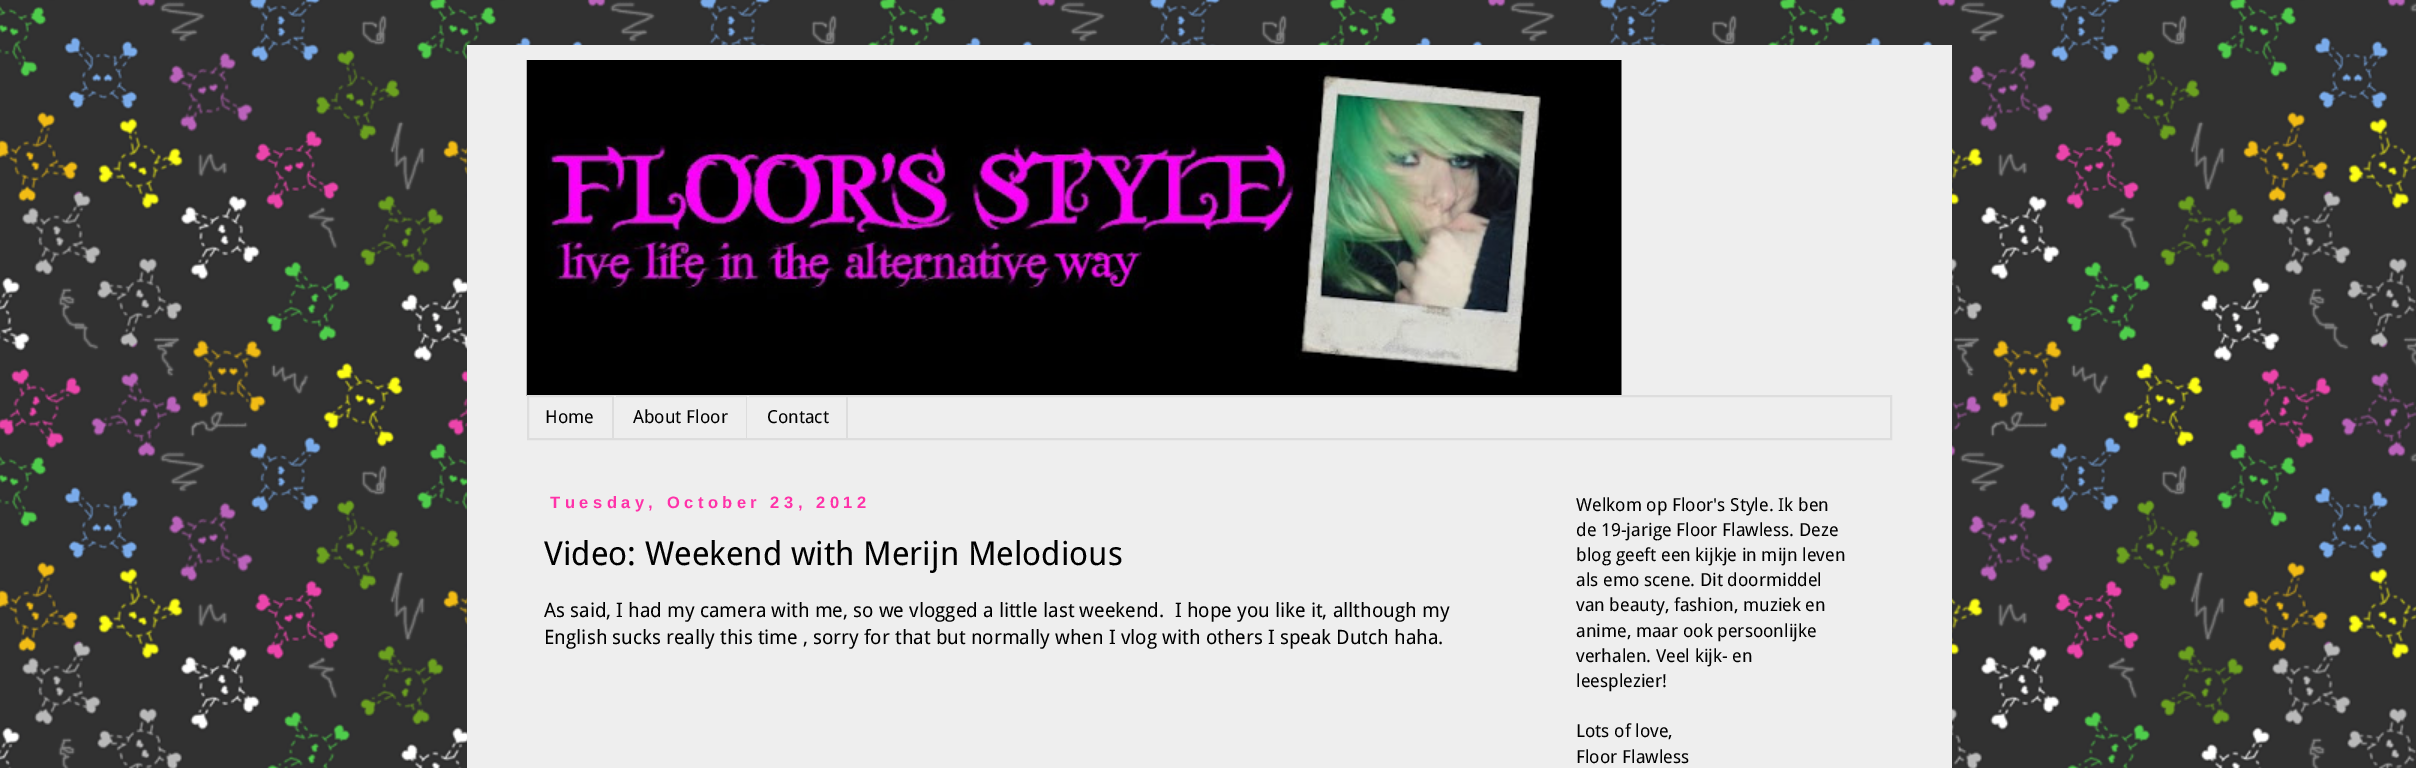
%!PS-Adobe-3.0
%%BoundingBox: 0 0 2416 768
%%LanguageLevel: 3
%%Pages: 1
%%EndComments
%%BeginProlog
/m { moveto } bind def
/w { setlinewidth } bind def
/fn { [ exch dup neg 0 0 3 -1 roll 0 0 ] selectfont } def
/tx { moveto show } def
/bx { rectfill } def
/im { 5 dict begin { /h /w /y /x /name } { exch def } forall
  gsave x y translate w h scale
  w h 8 [w 0 0 h 0 0] name (r) file false 3 colorimage grestore end } def
%%EndProlog
%%BeginSetup
<< /PageSize [2416 768] >> setpagedevice
%%EndSetup
%%Page: 1 1
0 768 translate 1 -1 scale
4 setmiterlimit
1 setgray
0 0 2416 768 bx
(image0.raw) 0 0 2416 768 im
0.933 setgray
467 45 1485 723 bx
(image1.raw) 526 60 1096 336 im
0.867 setgray
2 w
528 396 1363 43 rectstroke
612 396 2 42 bx
/DroidSans-Regular 18 fn
0 setgray
(Home) 545 423 tx
0.867 setgray
746 396 1 42 bx
0.933 setgray
614 396 2 1 bx
0 setgray
(About Floor) 633 423 tx
0.867 setgray
846 396 2 42 bx
0.933 setgray
747 396 2 1 bx
0 setgray
(Contact) 767 423 tx
/LiberationSans-Bold 16.5 fn
1 0.196 0.663 setrgbcolor
550 508 m 4.5 0 (Tuesday, October 23, 2012) ashow
/DroidSans-Regular 33 fn
0 setgray
(Video: Weekend with Merijn Melodious) 544 565 tx
/DroidSans-Regular 19.8 fn
(As said, I had my camera with me, so we vlogged a little last weekend.  I hope you like it, allthough my) 544 617 tx
(English sucks really this time , sorry for that but normally when I vlog with others I speak Dutch haha.) 544 644 tx
/DroidSans-Regular 18 fn
(Welkom op Floor's Style. Ik ben) 1576 511 tx
(de 19-jarige Floor Flawless. Deze) 1576 536 tx
(blog geeft een kijkje in mijn leven) 1576 561 tx
(als emo scene. Dit doormiddel) 1576 586 tx
(van beauty, fashion, muziek en) 1576 611 tx
(anime, maar ook persoonlijke) 1576 637 tx
(verhalen. Veel kijk- en) 1576 662 tx
(leesplezier!) 1576 687 tx
(Lots of love,) 1576 737 tx
(Floor Flawless) 1576 763 tx
showpage
%%EOF
